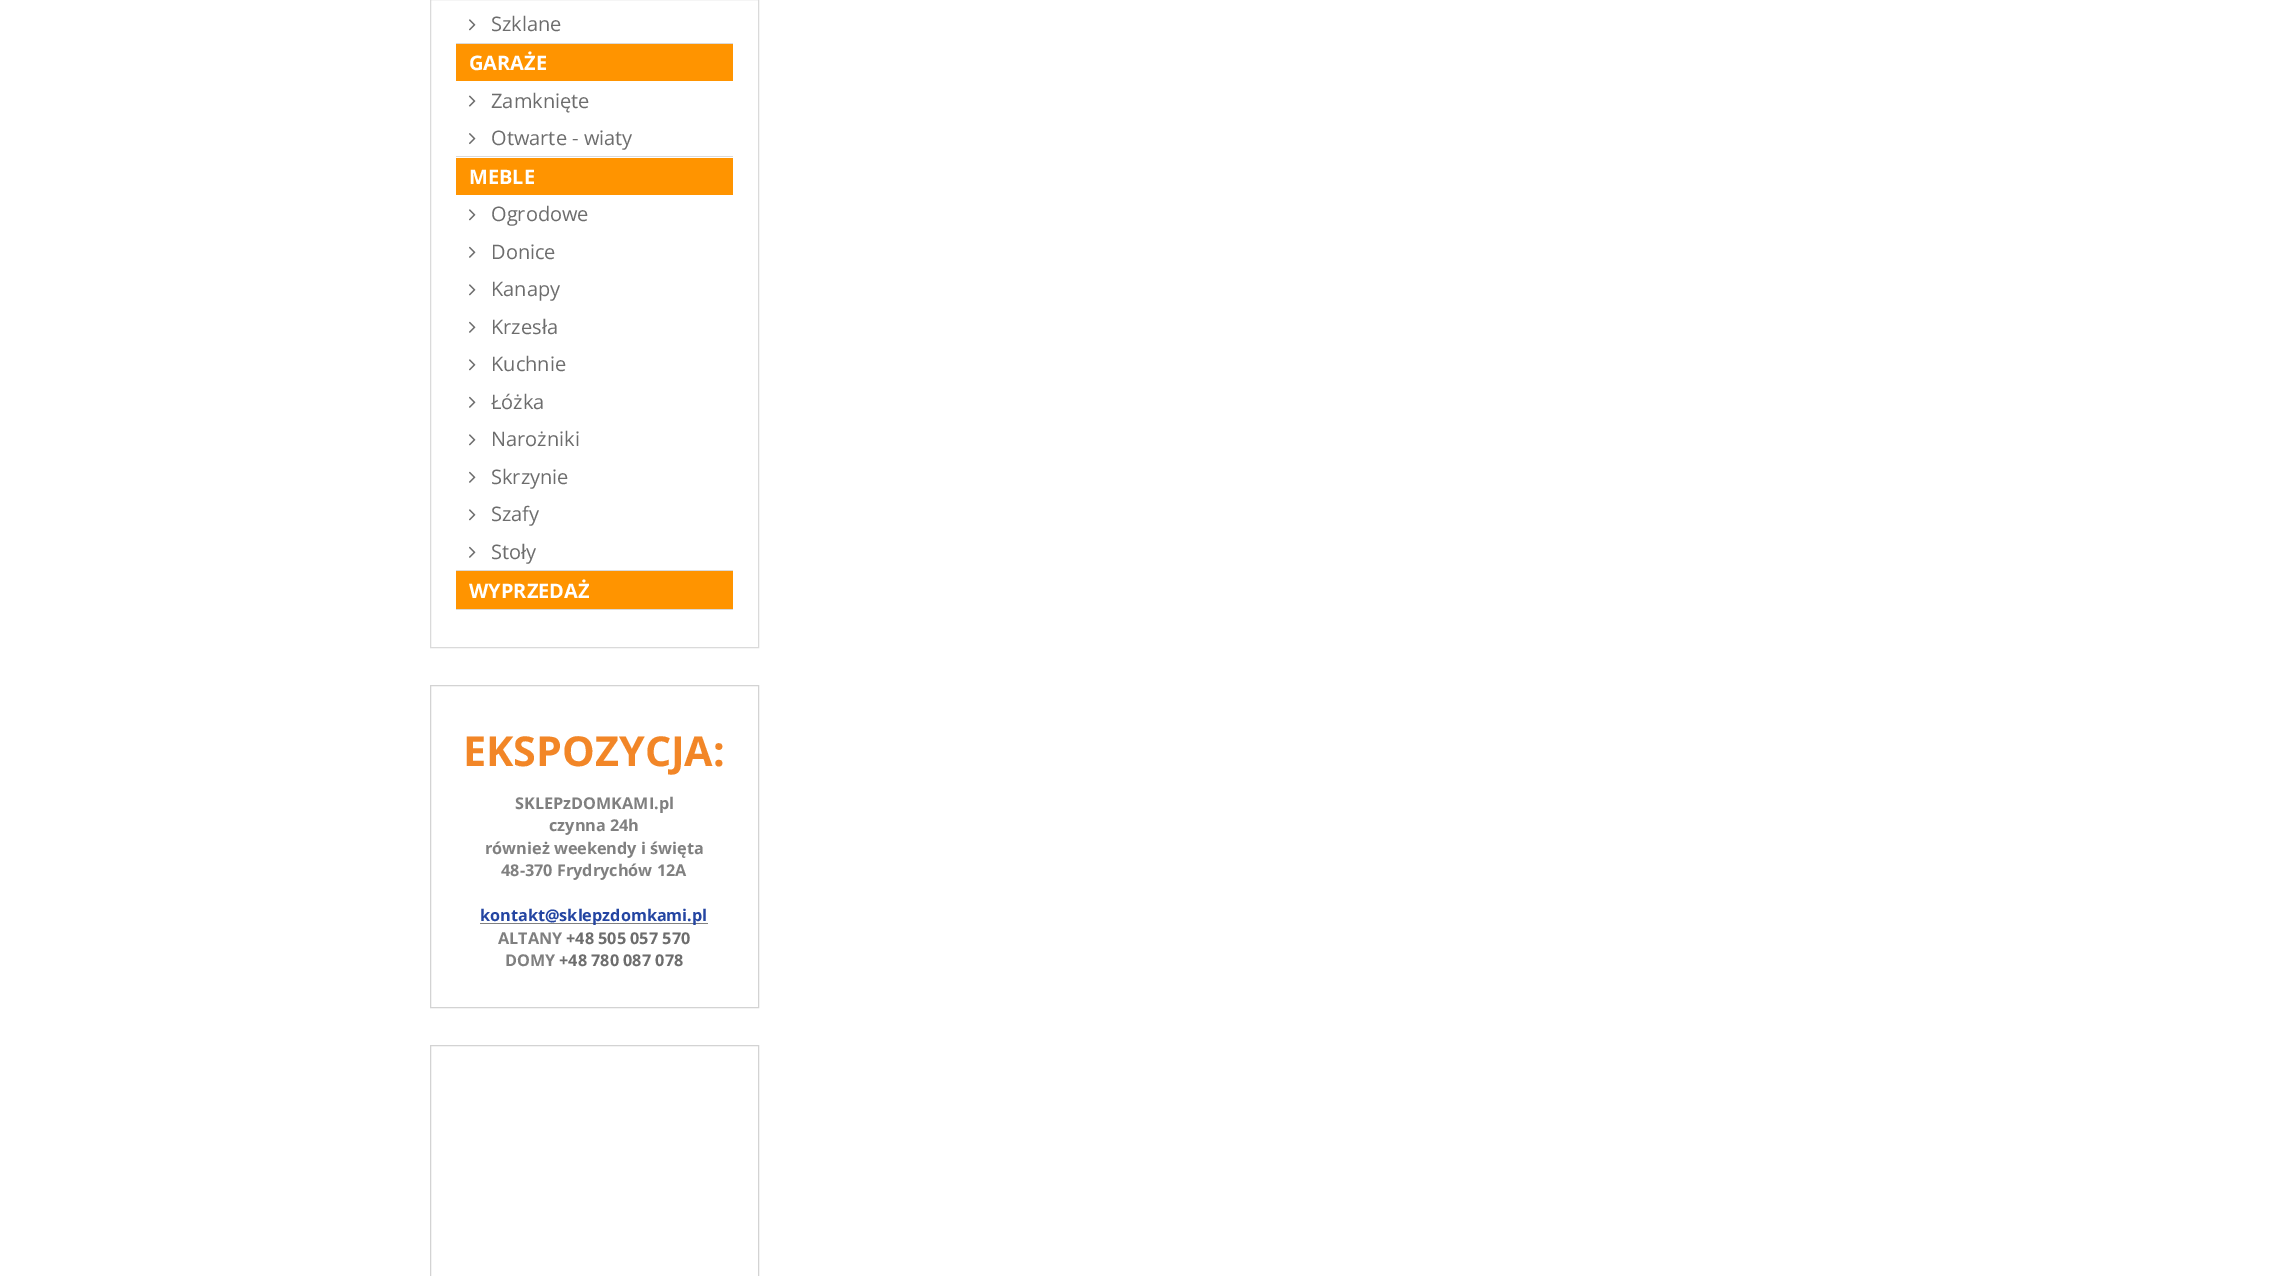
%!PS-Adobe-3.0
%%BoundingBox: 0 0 2284 1276
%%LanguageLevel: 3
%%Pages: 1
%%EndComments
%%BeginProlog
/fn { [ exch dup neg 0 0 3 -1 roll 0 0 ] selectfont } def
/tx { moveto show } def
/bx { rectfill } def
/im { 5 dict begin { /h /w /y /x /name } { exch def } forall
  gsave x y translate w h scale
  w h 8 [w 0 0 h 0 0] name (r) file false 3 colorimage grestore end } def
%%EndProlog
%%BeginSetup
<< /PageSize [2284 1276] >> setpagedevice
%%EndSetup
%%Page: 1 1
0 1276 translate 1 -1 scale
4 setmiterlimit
1 setgray
0 0 2284 1276 bx
0.855 setgray
430.5 -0.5 328 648 rectstroke
456 43 277 1 bx
(image0.raw) 469 19 7 12 im
/OpenSans-Regular 20 fn
0.427 setgray
(Szklane) 491 31 tx
0.855 setgray
456 156 277 1 bx
1 0.58 0 setrgbcolor
456 44 277 37 bx
/OpenSans-Bold 20 fn
1 setgray
(GARAŻE) 469 70 tx
(image1.raw) 468 95 8 12 im
/OpenSans-Regular 20 fn
0.427 setgray
(Zamknięte) 491 108 tx
(image2.raw) 469 133 7 12 im
(Otwarte - wiaty) 491 145 tx
0.855 setgray
456 570 277 1 bx
1 0.58 0 setrgbcolor
456 158 277 37 bx
/OpenSans-Bold 20 fn
1 setgray
(MEBLE) 469 184 tx
(image0.raw) 469 209 7 12 im
/OpenSans-Regular 20 fn
0.427 setgray
(Ogrodowe) 491 221 tx
(image3.raw) 469 246 7 12 im
(Donice) 491 259 tx
(image0.raw) 469 284 7 12 im
(Kanapy) 491 296 tx
(image3.raw) 469 321 7 12 im
(Krzesła) 491 334 tx
(image0.raw) 469 359 7 12 im
(Kuchnie) 491 371 tx
(image3.raw) 469 396 7 12 im
(Łóżka) 491 409 tx
(image0.raw) 469 434 7 12 im
(Narożniki) 491 446 tx
(image3.raw) 469 471 7 12 im
(Skrzynie) 491 484 tx
(image0.raw) 469 509 7 12 im
(Szafy) 491 521 tx
(image3.raw) 469 546 7 12 im
(Stoły) 491 559 tx
0.855 setgray
456 609 277 1 bx
1 0.58 0 setrgbcolor
456 571 277 38 bx
/OpenSans-Bold 20 fn
1 setgray
(WYPRZEDAŻ) 469 598 tx
0.827 setgray
430.5 685.5 328 322 rectstroke
/OpenSans-Bold 41.25 fn
0.949 0.525 0.153 setrgbcolor
(EKSPOZYCJA:) 463 766 tx
/OpenSans-Bold 16.25 fn
0.502 setgray
(SKLEPzDOMKAMI.pl) 515 809 tx
(czynna 24h) 549 831 tx
(również weekendy i święta) 485 854 tx
(48-370 Frydrychów 12A) 501 876 tx
480 923 228 1 bx
0.141 0.271 0.635 setrgbcolor
(kontakt@sklepzdomkami.pl) 480 921 tx
0.502 setgray
(ALTANY) 498 944 tx
0.427 setgray
(+48 505 057 570) 566 944 tx
0.502 setgray
(DOMY) 505 966 tx
0.427 setgray
(+48 780 087 078) 559 966 tx
0.827 setgray
430.5 1045.5 328 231 rectstroke
showpage
%%EOF
